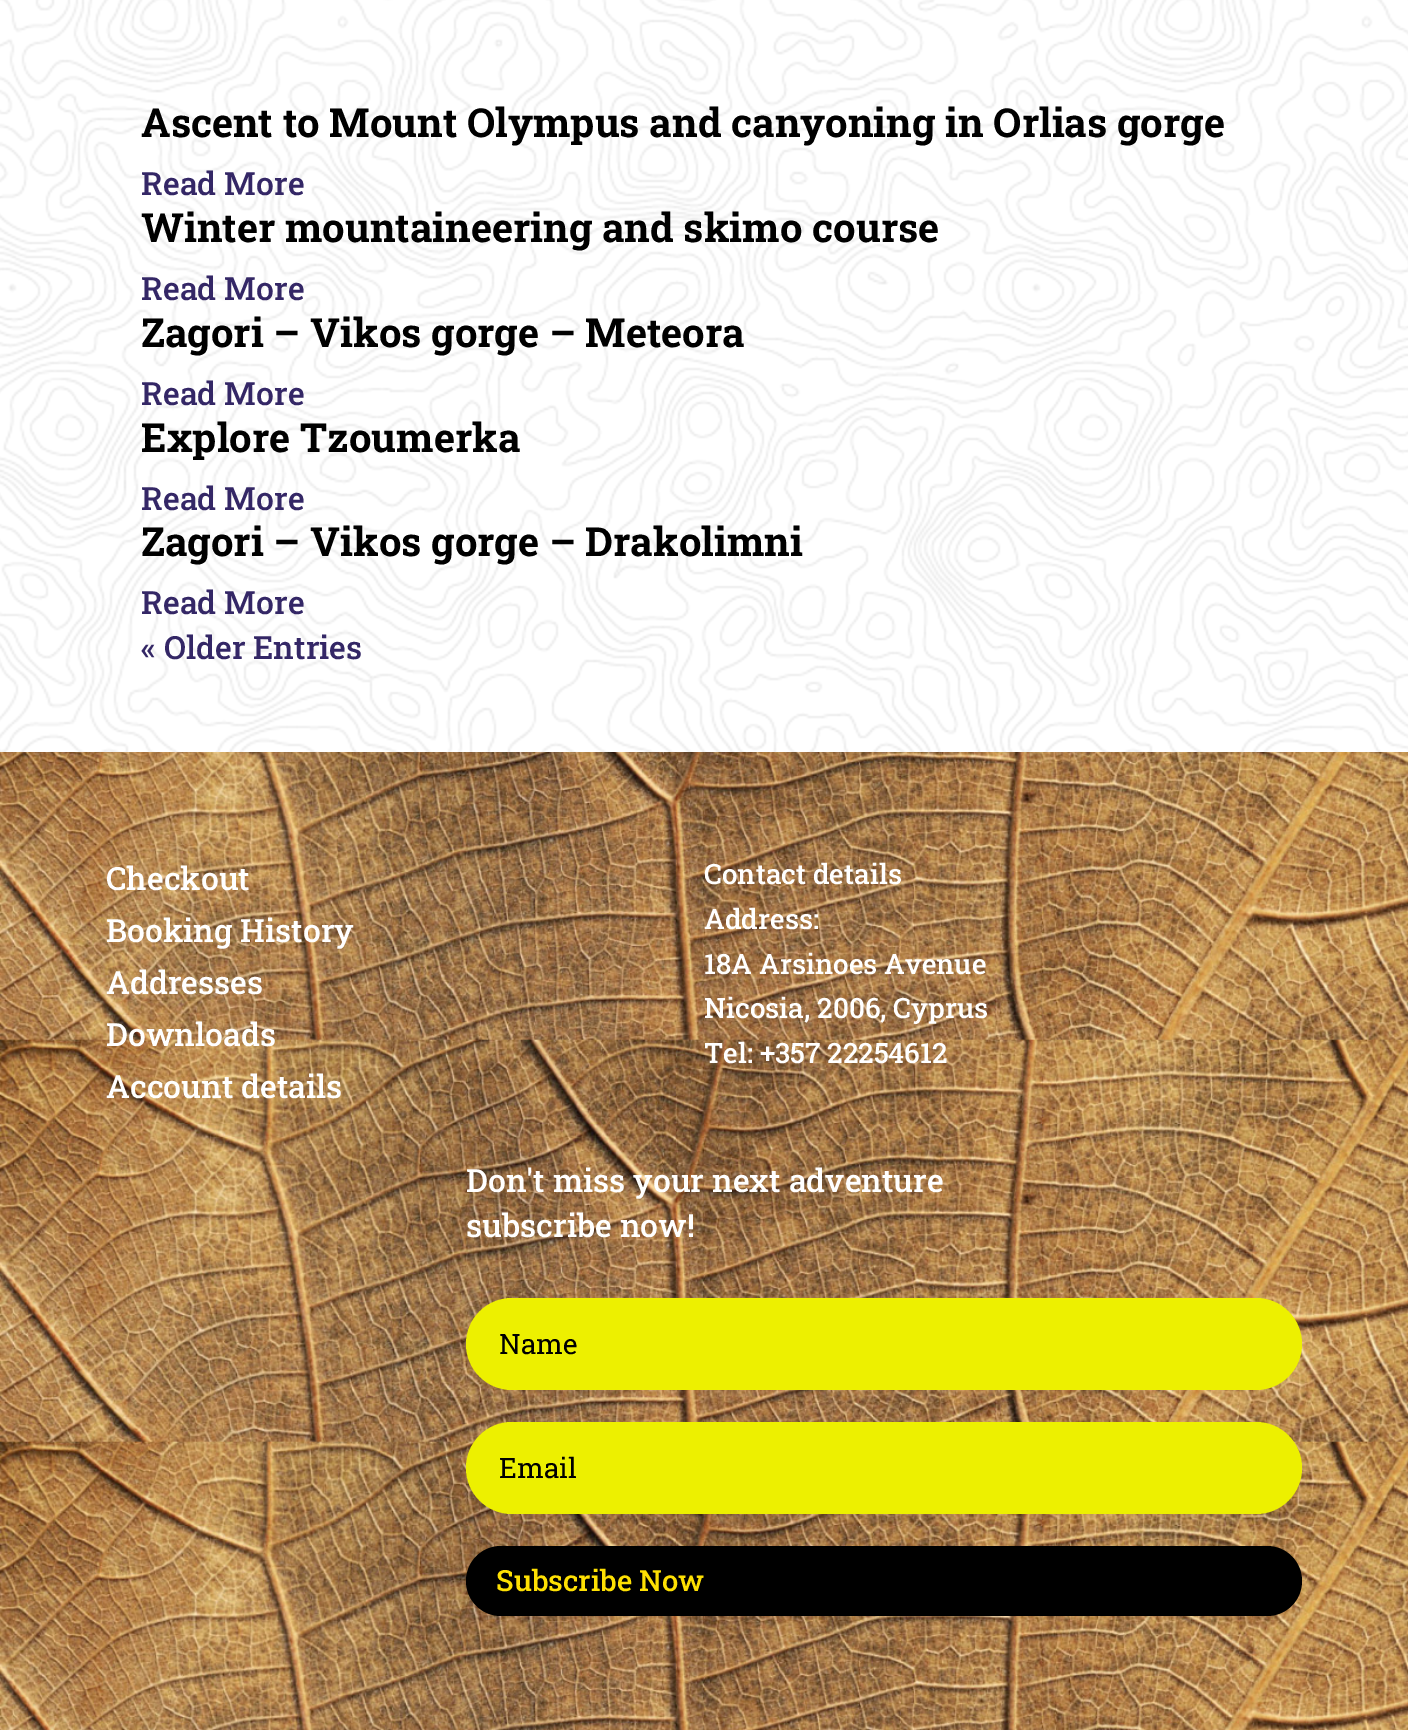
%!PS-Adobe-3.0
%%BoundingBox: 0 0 1408 1730
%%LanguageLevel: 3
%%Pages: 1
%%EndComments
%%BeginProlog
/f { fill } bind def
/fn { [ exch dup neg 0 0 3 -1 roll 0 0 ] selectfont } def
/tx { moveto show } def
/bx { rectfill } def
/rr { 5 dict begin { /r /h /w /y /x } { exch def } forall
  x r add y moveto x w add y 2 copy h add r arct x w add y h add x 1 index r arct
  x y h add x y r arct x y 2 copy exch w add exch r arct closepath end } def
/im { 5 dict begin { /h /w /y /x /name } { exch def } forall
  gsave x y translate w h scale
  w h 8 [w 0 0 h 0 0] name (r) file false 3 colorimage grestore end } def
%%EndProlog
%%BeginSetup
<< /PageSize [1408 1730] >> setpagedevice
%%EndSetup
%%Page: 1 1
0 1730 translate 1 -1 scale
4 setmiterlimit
1 setgray
0 0 1408 1730 bx
(image0.raw) 0 0 1408 752 im
/RobotoSlab-Bold 40 fn
0 setgray
(Ascent to Mount Olympus and canyoning in Orlias gorge) 141 137 tx
/RobotoSlab-Medium 32 fn
0.204 0.153 0.4 setrgbcolor
(Read More) 141 195 tx
/RobotoSlab-Bold 40 fn
0 setgray
(Winter mountaineering and skimo course) 141 242 tx
/RobotoSlab-Medium 32 fn
0.204 0.153 0.4 setrgbcolor
(Read More) 141 300 tx
/RobotoSlab-Bold 40 fn
0 setgray
(Zagori – Vikos gorge – Meteora) 141 347 tx
/RobotoSlab-Medium 32 fn
0.204 0.153 0.4 setrgbcolor
(Read More) 141 405 tx
/RobotoSlab-Bold 40 fn
0 setgray
(Explore Tzoumerka) 141 452 tx
/RobotoSlab-Medium 32 fn
0.204 0.153 0.4 setrgbcolor
(Read More) 141 510 tx
/RobotoSlab-Bold 40 fn
0 setgray
(Zagori – Vikos gorge – Drakolimni) 141 556 tx
/RobotoSlab-Medium 32 fn
0.204 0.153 0.4 setrgbcolor
(Read More) 141 614 tx
(« Older Entries) 141 659 tx
(image1.raw) 0 752 1408 978 im
1 setgray
(Checkout) 106 890 tx
(Booking History) 106 942 tx
(Addresses) 106 994 tx
(Downloads) 106 1046 tx
(Account details) 106 1098 tx
/RobotoSlab-Medium 28 fn
(Contact details) 704 884 tx
(Address:) 704 929 tx
(18A Arsinoes Avenue) 704 974 tx
(Nicosia, 2006, Cyprus) 704 1018 tx
(Tel: +357 22254612) 704 1063 tx
/RobotoSlab-Medium 32 fn
(Don't miss your next adventure) 466 1192 tx
(subscribe now!) 466 1237 tx
0.929 0.941 0 setrgbcolor
466 1298 836 92 46 rr f
/RobotoSlab-Regular 28 fn
0 setgray
(Name) 499 1354 tx
0.929 0.941 0 setrgbcolor
466 1422 836 92 46 rr f
0 setgray
(Email) 499 1478 tx
466 1546 836 70 35 rr f
/RobotoSlab-Medium 29.25 fn
0.996 0.878 0.012 setrgbcolor
(Subscribe Now) 496 1591 tx
showpage
%%EOF
